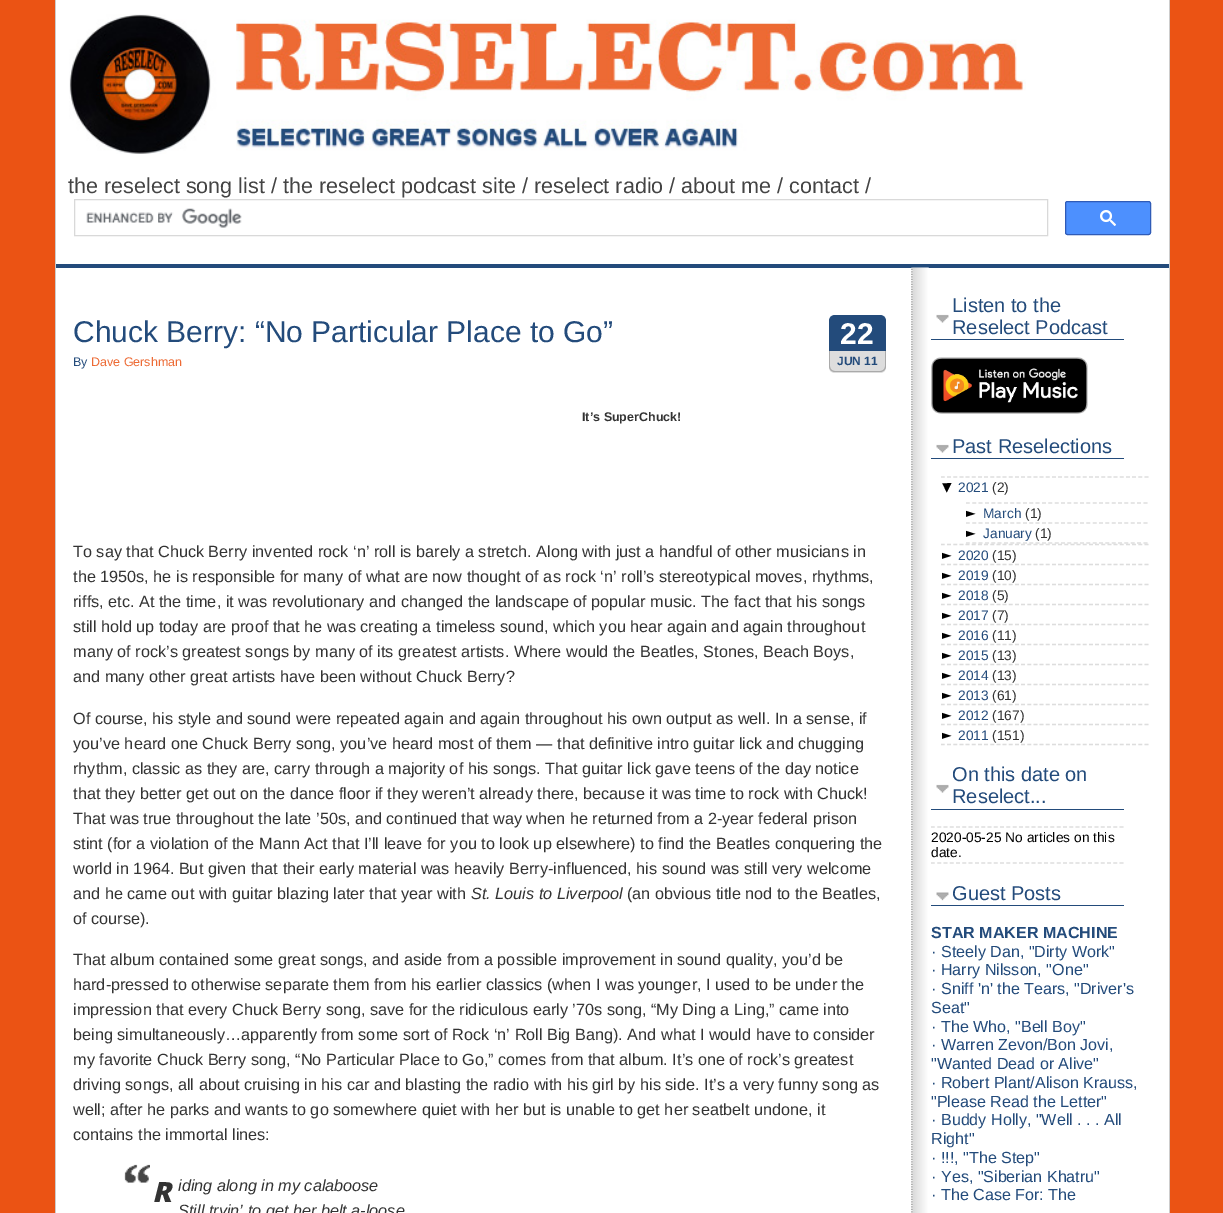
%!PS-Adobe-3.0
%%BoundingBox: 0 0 1223 1213
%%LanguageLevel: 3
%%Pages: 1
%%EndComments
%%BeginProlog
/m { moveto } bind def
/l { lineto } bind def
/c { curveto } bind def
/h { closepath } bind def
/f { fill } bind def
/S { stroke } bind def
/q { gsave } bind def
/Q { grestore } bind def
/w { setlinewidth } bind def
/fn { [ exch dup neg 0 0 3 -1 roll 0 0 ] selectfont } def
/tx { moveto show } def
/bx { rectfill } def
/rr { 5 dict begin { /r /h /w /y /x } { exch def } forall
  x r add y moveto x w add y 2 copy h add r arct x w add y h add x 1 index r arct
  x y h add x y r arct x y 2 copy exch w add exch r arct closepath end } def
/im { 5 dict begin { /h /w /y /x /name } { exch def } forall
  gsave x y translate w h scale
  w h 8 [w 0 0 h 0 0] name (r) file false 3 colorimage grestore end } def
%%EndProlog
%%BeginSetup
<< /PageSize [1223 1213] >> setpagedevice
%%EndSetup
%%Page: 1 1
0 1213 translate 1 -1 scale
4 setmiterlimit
0.922 0.325 0.078 setrgbcolor
0 0 1223 1213 bx
1 setgray
56 0 1113 1213 bx
0.8 setgray
1169 0 1 1213 bx
55 0 1 1213 bx
(image0.raw) 69 14 957 140 im
/LiberationSans-Regular 21.6 fn
0.267 setgray
(the reselect song list / the reselect podcast site / reselect radio / about me / contact /) 68 193 tx
0.851 setgray
74.5 199.5 973 36 rectstroke
(image1.raw) 86 208 156 20 im
0.302 0.565 0.996 setrgbcolor
1065.5 201.5 85 33 2 rr q f Q
0.184 0.357 0.718 setrgbcolor
S
(image2.raw) 1100 210 16 16 im
0.137 0.294 0.482 setrgbcolor
56 264 1113 4 bx
(image3.raw) 911 267 18 946 im
/LiberationSans-Regular 30 fn
(Chuck Berry: “No Particular Place to Go”) 73 342 tx
835 315 m 880 315 l 883.5 315 886 317.5 886 321 c 886 360 l 886 367 880 373 873 373 c 842 373 l 835 373 829 367 829 360 c 829 321 l 829 317.5 831.5 315 835 315 c h f
/LiberationSans-Bold 30 fn
1 setgray
(22) 840 344 tx
0.867 setgray
829 351 m 886 351 l 886 367 l 886 370.5 883.5 373 880 373 c 835 373 l 831.5 373 829 370.5 829 367 c h f
0.667 setgray
829 351 m 886 351 l 886 366 l 886 370 883 372 880 372 c 835 372 l 832 372 829 370 829 366 c h 830 351 m 885 351 l 885 366 l 885 369 883 371 880 371 c 835 371 l 832 371 830 369 830 366 c h eofill
/LiberationSans-Bold 12 fn
0.137 0.294 0.482 setrgbcolor
(JUN 11) 837 365 tx
/LiberationSans-Regular 12.5 fn
(By) 73 366 tx
0.929 0.416 0.204 setrgbcolor
(Dave Gershman) 91 366 tx
/LiberationSans-Bold 12.5 fn
0.2 setgray
(It’s SuperChuck!) 582 421 tx
/LiberationSans-Regular 16.25 fn
(To say that Chuck Berry invented rock ‘n’ roll is barely a stretch. Along with just a handful of other musicians in) 73 557 tx
(the 1950s, he is responsible for many of what are now thought of as rock ‘n’ roll’s stereotypical moves, rhythms,) 73 582 tx
(riffs, etc. At the time, it was revolutionary and changed the landscape of popular music. The fact that his songs) 73 607 tx
(still hold up today are proof that he was creating a timeless sound, which you hear again and again throughout) 73 632 tx
(many of rock’s greatest songs by many of its greatest artists. Where would the Beatles, Stones, Beach Boys,) 73 657 tx
(and many other great artists have been without Chuck Berry?) 73 682 tx
(Of course, his style and sound were repeated again and again throughout his own output as well. In a sense, if) 73 724 tx
(you’ve heard one Chuck Berry song, you’ve heard most of them — that definitive intro guitar lick and chugging) 73 749 tx
(rhythm, classic as they are, carry through a majority of his songs. That guitar lick gave teens of the day notice) 73 774 tx
(that they better get out on the dance floor if they weren’t already there, because it was time to rock with Chuck!) 73 799 tx
(That was true throughout the late ’50s, and continued that way when he returned from a 2-year federal prison) 73 824 tx
(stint \(for a violation of the Mann Act that I’ll leave for you to look up elsewhere\) to find the Beatles conquering the) 73 849 tx
(world in 1964. But given that their early material was heavily Berry-influenced, his sound was still very welcome) 73 874 tx
(and he came out with guitar blazing later that year with) 73 899 tx
/LiberationSans-Italic 16.25 fn
(St. Louis to Liverpool) 471 899 tx
/LiberationSans-Regular 16.25 fn
(\(an obvious title nod to the Beatles,) 627 899 tx
(of course\).) 73 924 tx
(That album contained some great songs, and aside from a possible improvement in sound quality, you’d be) 73 965 tx
(hard-pressed to otherwise separate them from his earlier classics \(when I was younger, I used to be under the) 73 990 tx
(impression that every Chuck Berry song, save for the ridiculous early ’70s song, “My Ding a Ling,” came into) 73 1015 tx
(being simultaneously…apparently from some sort of Rock ‘n’ Roll Big Bang\). And what I would have to consider) 73 1040 tx
(my favorite Chuck Berry song, “No Particular Place to Go,” comes from that album. It’s one of rock’s greatest) 73 1065 tx
(driving songs, all about cruising in his car and blasting the radio with his girl by his side. It’s a very funny song as) 73 1090 tx
(well; after he parks and wants to go somewhere quiet with her but is unable to get her seatbelt undone, it) 73 1115 tx
(contains the immortal lines:) 73 1140 tx
(image4.raw) 124 1164 26 19 im
/NotoSans-BlackItalic 28 fn
(R) 152 1202 tx
/LiberationSans-Italic 16.25 fn
(iding along in my calaboose) 178 1191 tx
(Still tryin’ to get her belt a-loose) 178 1216 tx
(image5.raw) 936 314 13 9 im
0.137 0.294 0.482 setrgbcolor
931 339 193 1 bx
/LiberationSans-Regular 20 fn
(Listen to the) 952 312 tx
(Reselect Podcast) 952 334 tx
(image6.raw) 931 357 157 57 im
(image5.raw) 936 444 13 9 im
931 458 193 1 bx
(Past Reselections) 952 453 tx
0.867 setgray
1.2 w
[3.75 2.42] 0 setdash
941 477 m 1149 477 l S
941 544.5 m 1149 544.5 l S
/DejaVuSansMono-Regular 16 fn
0 setgray
(▼) 942 492 tx
/LiberationSans-Regular 13.75 fn
0.137 0.294 0.482 setrgbcolor
(2021) 958 492 tx
0.2 setgray
(\(2\)) 992 492 tx
q
941 478 208 66 rectclip
0.867 setgray
[3.75 2.59] 0 setdash
966 503 m 1154 503 l S
966 523 m 1154 523 l S
Q
/DejaVuSansMono-Regular 16 fn
0 setgray
(►) 966 518 tx
/LiberationSans-Regular 13.75 fn
0.137 0.294 0.482 setrgbcolor
(March) 983 518 tx
0.2 setgray
(\(1\)) 1025 518 tx
q
941 478 208 66 rectclip
0.867 setgray
[3.75 2.59] 0 setdash
966 543 m 1154 543 l S
Q
/DejaVuSansMono-Regular 16 fn
0 setgray
(►) 966 538 tx
/LiberationSans-Regular 13.75 fn
0.137 0.294 0.482 setrgbcolor
(January) 983 538 tx
0.2 setgray
(\(1\)) 1035 538 tx
0.867 setgray
941 564.5 m 1149 564.5 l S
/DejaVuSansMono-Regular 16 fn
0 setgray
(►) 942 560 tx
/LiberationSans-Regular 13.75 fn
0.137 0.294 0.482 setrgbcolor
(2020) 958 560 tx
0.2 setgray
(\(15\)) 992 560 tx
0.867 setgray
941 584.5 m 1149 584.5 l S
/DejaVuSansMono-Regular 16 fn
0 setgray
(►) 942 580 tx
/LiberationSans-Regular 13.75 fn
0.137 0.294 0.482 setrgbcolor
(2019) 958 580 tx
0.2 setgray
(\(10\)) 992 580 tx
0.867 setgray
941 604.5 m 1149 604.5 l S
/DejaVuSansMono-Regular 16 fn
0 setgray
(►) 942 600 tx
/LiberationSans-Regular 13.75 fn
0.137 0.294 0.482 setrgbcolor
(2018) 958 600 tx
0.2 setgray
(\(5\)) 992 600 tx
0.867 setgray
941 624.5 m 1149 624.5 l S
/DejaVuSansMono-Regular 16 fn
0 setgray
(►) 942 620 tx
/LiberationSans-Regular 13.75 fn
0.137 0.294 0.482 setrgbcolor
(2017) 958 620 tx
0.2 setgray
(\(7\)) 992 620 tx
0.867 setgray
941 644.5 m 1149 644.5 l S
/DejaVuSansMono-Regular 16 fn
0 setgray
(►) 942 640 tx
/LiberationSans-Regular 13.75 fn
0.137 0.294 0.482 setrgbcolor
(2016) 958 640 tx
0.2 setgray
(\(11\)) 992 640 tx
0.867 setgray
941 664.5 m 1149 664.5 l S
/DejaVuSansMono-Regular 16 fn
0 setgray
(►) 942 660 tx
/LiberationSans-Regular 13.75 fn
0.137 0.294 0.482 setrgbcolor
(2015) 958 660 tx
0.2 setgray
(\(13\)) 992 660 tx
0.867 setgray
941 684.5 m 1149 684.5 l S
/DejaVuSansMono-Regular 16 fn
0 setgray
(►) 942 680 tx
/LiberationSans-Regular 13.75 fn
0.137 0.294 0.482 setrgbcolor
(2014) 958 680 tx
0.2 setgray
(\(13\)) 992 680 tx
0.867 setgray
941 704.5 m 1149 704.5 l S
/DejaVuSansMono-Regular 16 fn
0 setgray
(►) 942 700 tx
/LiberationSans-Regular 13.75 fn
0.137 0.294 0.482 setrgbcolor
(2013) 958 700 tx
0.2 setgray
(\(61\)) 992 700 tx
0.867 setgray
941 724.5 m 1149 724.5 l S
/DejaVuSansMono-Regular 16 fn
0 setgray
(►) 942 720 tx
/LiberationSans-Regular 13.75 fn
0.137 0.294 0.482 setrgbcolor
(2012) 958 720 tx
0.2 setgray
(\(167\)) 992 720 tx
0.867 setgray
941 744.5 m 1149 744.5 l S
/DejaVuSansMono-Regular 16 fn
0 setgray
(►) 942 740 tx
/LiberationSans-Regular 13.75 fn
0.137 0.294 0.482 setrgbcolor
(2011) 958 740 tx
0.2 setgray
(\(151\)) 992 740 tx
(image7.raw) 936 784 13 9 im
0.137 0.294 0.482 setrgbcolor
931 809 193 1 bx
/LiberationSans-Regular 20 fn
(On this date on) 952 781 tx
(Reselect...) 952 803 tx
0.867 setgray
[3.75 2.54] 0 setdash
931 827 m 1124 827 l S
931 863 m 1124 863 l S
/LiberationSans-Regular 13.75 fn
0 setgray
(2020-05-25 No articles on this) 931 842 tx
(date.) 931 857 tx
(image8.raw) 936 892 13 9 im
0.137 0.294 0.482 setrgbcolor
931 905 193 1 bx
/LiberationSans-Regular 20 fn
(Guest Posts) 952 900 tx
/LiberationSans-Bold 16.1 fn
(STAR MAKER MACHINE) 931 938 tx
/LiberationSans-Regular 16.1 fn
(· Steely Dan, "Dirty Work") 931 957 tx
(· Harry Nilsson, "One") 931 975 tx
(· Sniff 'n' the Tears, "Driver's) 931 994 tx
(Seat") 931 1013 tx
(· The Who, "Bell Boy") 931 1032 tx
(· Warren Zevon/Bon Jovi,) 931 1050 tx
("Wanted Dead or Alive") 931 1069 tx
(· Robert Plant/Alison Krauss,) 931 1088 tx
("Please Read the Letter") 931 1107 tx
(· Buddy Holly, "Well . . . All) 931 1125 tx
(Right") 931 1144 tx
(· !!!, "The Step") 931 1163 tx
(· Yes, "Siberian Khatru") 931 1182 tx
(· The Case For: The) 931 1200 tx
showpage
%%EOF
